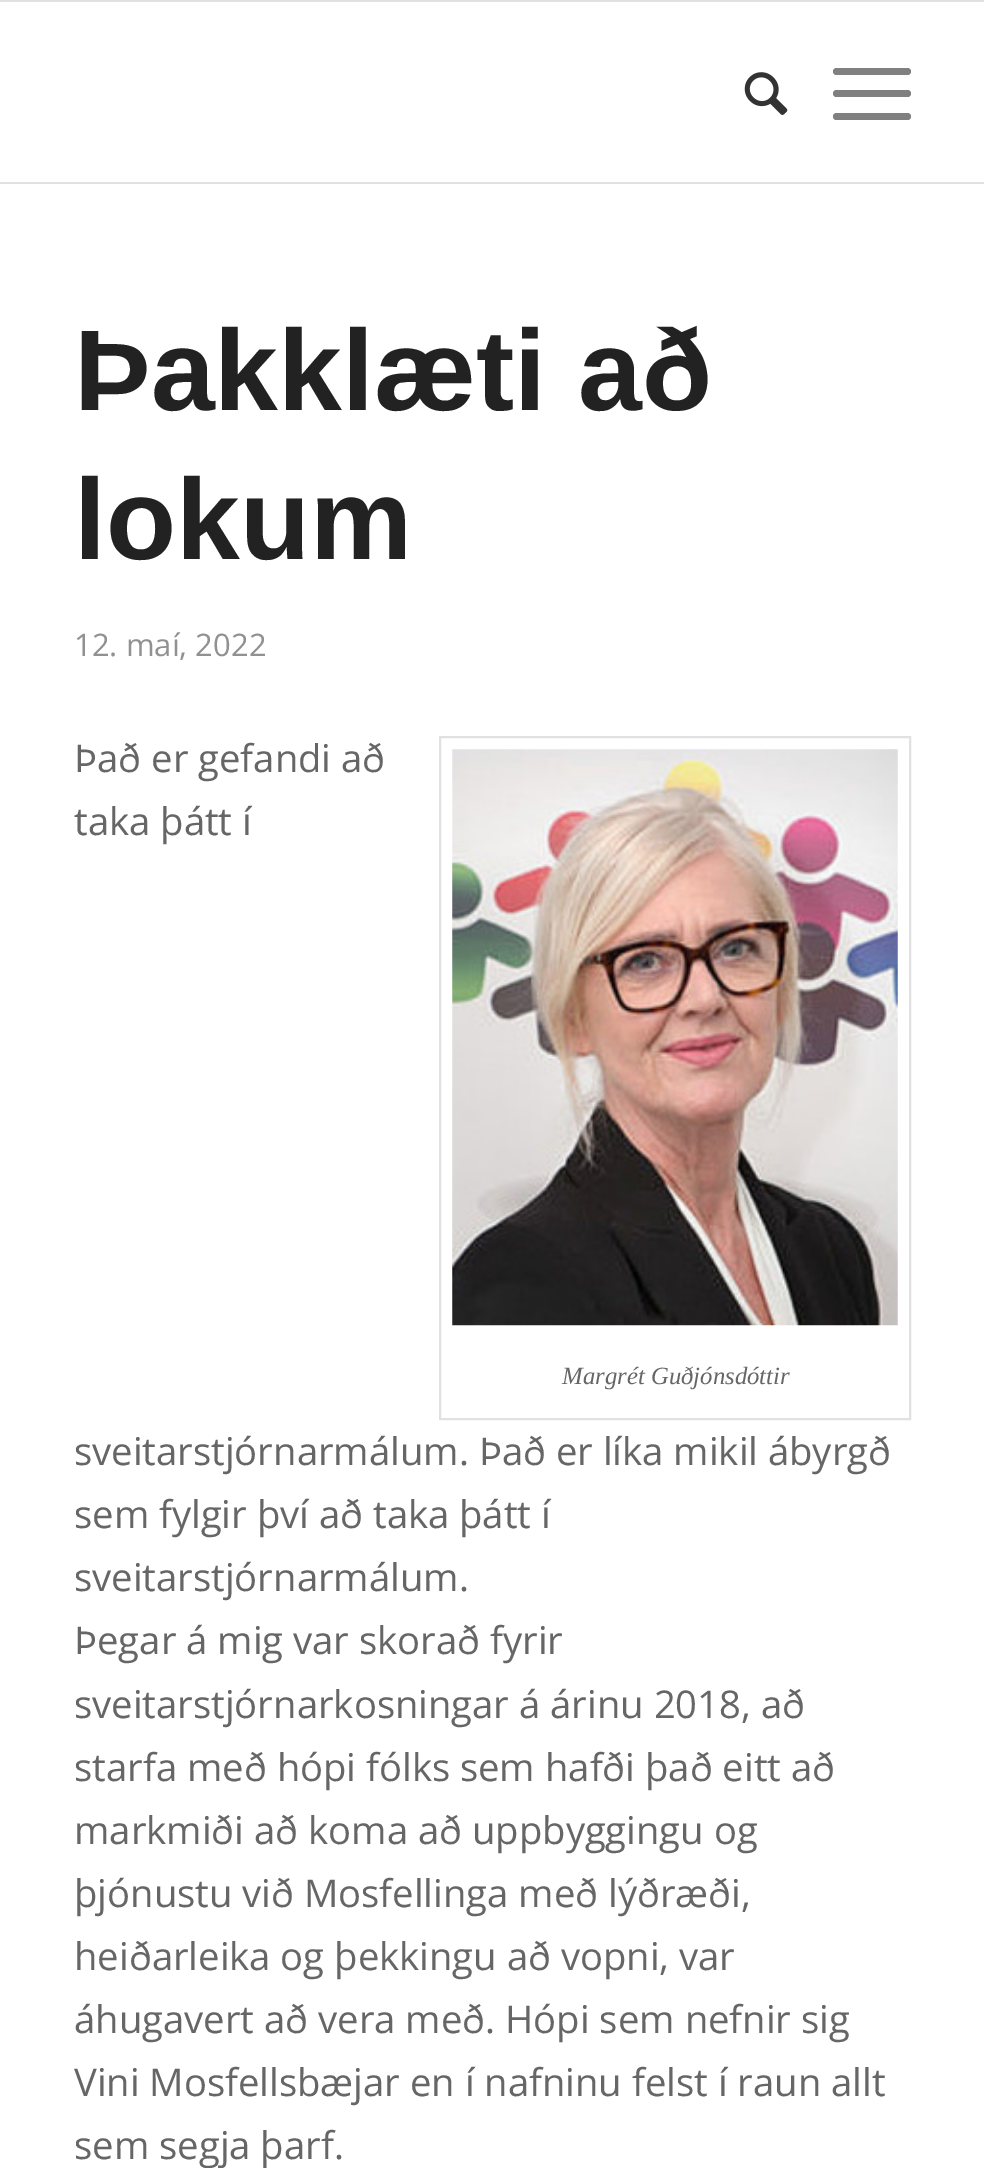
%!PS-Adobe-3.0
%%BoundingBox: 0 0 984 2168
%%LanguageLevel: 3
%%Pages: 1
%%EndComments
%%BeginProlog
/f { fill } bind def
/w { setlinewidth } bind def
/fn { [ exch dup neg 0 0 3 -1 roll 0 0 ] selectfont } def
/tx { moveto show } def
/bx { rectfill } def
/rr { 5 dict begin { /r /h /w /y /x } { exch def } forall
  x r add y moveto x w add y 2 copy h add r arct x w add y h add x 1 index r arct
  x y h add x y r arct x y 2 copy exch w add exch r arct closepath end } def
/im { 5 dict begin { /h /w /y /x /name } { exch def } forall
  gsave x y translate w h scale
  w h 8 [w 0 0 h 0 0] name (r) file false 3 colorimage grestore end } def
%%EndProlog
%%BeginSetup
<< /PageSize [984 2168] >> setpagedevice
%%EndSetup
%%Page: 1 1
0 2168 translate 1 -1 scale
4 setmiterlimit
1 setgray
0 0 984 2168 bx
0.882 setgray
0 0 984 2 bx
0 182 984 2 bx
(image0.raw) 744 72 44 43 im
0.502 setgray
833 90 78 7 3.5 rr f
833 68 78 7 3.5 rr f
833 113 78 7 3.5 rr f
/Arimo-Bold 114.75 fn
0.133 setgray
(Þakklæti að) 74 410 tx
(lokum) 74 559 tx
/OpenSans-Regular 31 fn
0.569 setgray
(12. maí, 2022) 74 656 tx
/OpenSans-Regular 38.25 fn
0.4 setgray
(Það er gefandi að) 74 772 tx
(taka þátt í) 74 835 tx
(sveitarstjórnarmálum. Það er líka mikil ábyrgð) 74 1465 tx
(sem fylgir því að taka þátt í) 74 1528 tx
(sveitarstjórnarmálum.) 74 1591 tx
(Þegar á mig var skorað fyrir) 74 1654 tx
(sveitarstjórnarkosningar á árinu 2018, að) 74 1718 tx
(starfa með hópi fólks sem hafði það eitt að) 74 1781 tx
(markmiði að koma að uppbyggingu og) 74 1844 tx
(þjónustu við Mosfellinga með lýðræði,) 74 1907 tx
(heiðarleika og þekkingu að vopni, var) 74 1970 tx
(áhugavert að vera með. Hópi sem nefnir sig) 74 2033 tx
(Vini Mosfellsbæjar en í nafninu felst í raun allt) 74 2096 tx
(sem segja þarf.) 74 2159 tx
0.882 setgray
2 w
440 737 470 682 rectstroke
(image1.raw) 452 749 446 577 im
/LiberationSerif-Italic 24.75 fn
0.4 setgray
(Margrét Guðjónsdóttir) 562 1384 tx
showpage
%%EOF
